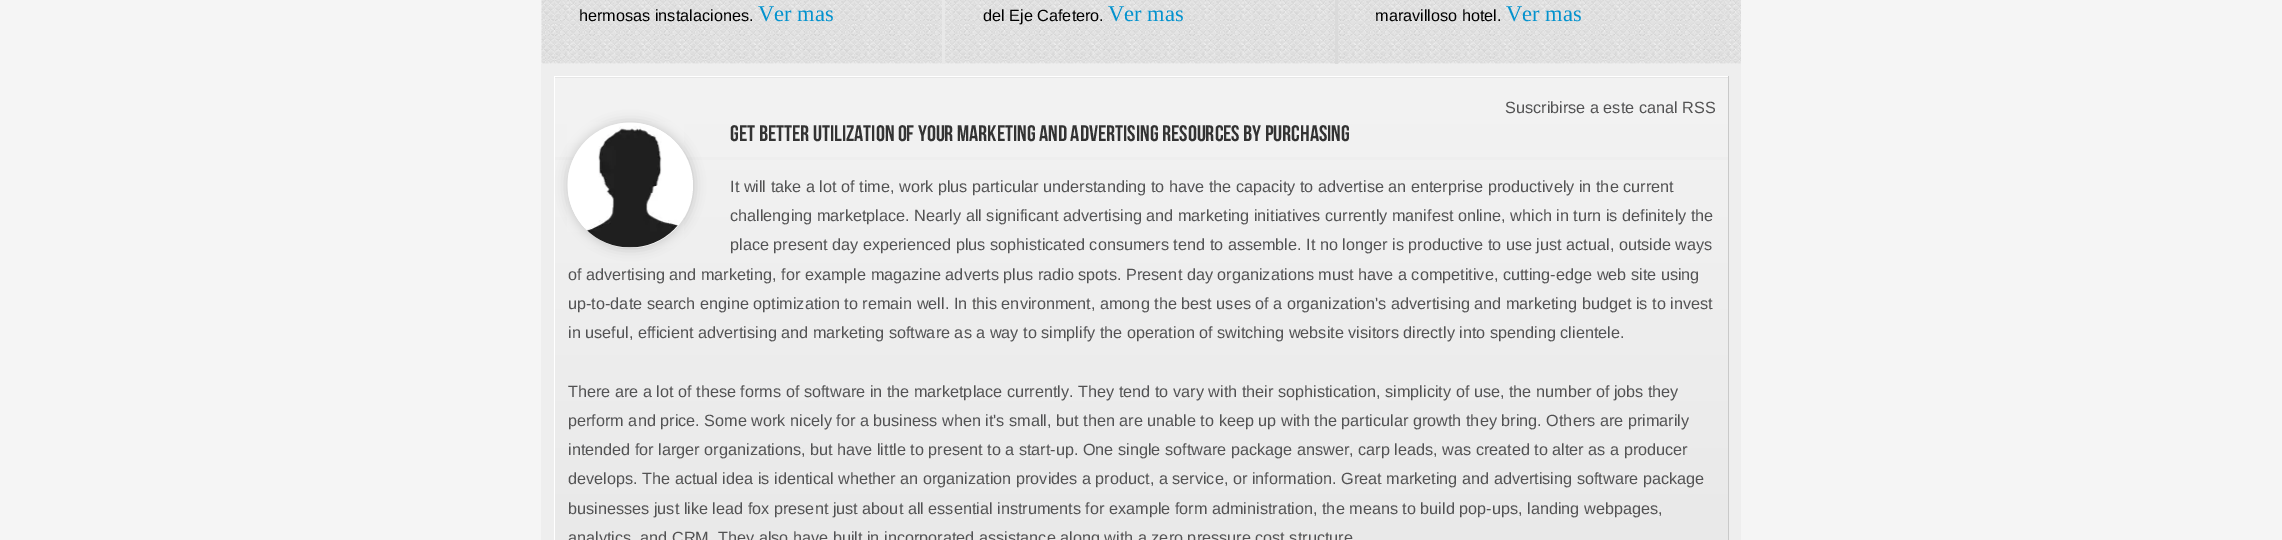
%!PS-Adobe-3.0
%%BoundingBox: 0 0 2282 540
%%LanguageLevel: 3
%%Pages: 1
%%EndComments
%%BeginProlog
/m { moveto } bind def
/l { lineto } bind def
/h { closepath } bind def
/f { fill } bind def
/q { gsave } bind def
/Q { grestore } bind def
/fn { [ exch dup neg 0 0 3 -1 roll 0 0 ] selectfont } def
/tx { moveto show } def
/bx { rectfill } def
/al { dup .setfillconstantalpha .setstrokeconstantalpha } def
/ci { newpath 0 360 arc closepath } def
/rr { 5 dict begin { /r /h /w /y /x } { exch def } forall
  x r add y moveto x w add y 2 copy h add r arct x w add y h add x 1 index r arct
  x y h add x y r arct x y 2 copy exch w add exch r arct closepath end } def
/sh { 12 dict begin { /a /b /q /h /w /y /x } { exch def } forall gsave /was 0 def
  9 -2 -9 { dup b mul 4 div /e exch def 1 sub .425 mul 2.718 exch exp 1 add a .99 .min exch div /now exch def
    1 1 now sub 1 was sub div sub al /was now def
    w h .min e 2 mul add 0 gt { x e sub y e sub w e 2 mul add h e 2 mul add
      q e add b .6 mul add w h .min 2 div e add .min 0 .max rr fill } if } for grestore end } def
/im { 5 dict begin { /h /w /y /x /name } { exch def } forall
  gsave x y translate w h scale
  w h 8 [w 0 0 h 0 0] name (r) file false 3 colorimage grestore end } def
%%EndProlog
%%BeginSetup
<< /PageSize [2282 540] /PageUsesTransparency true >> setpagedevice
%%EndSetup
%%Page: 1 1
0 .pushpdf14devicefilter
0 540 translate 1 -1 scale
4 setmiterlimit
0.961 setgray
0 0 2282 540 bx
(image0.raw) 541 0 1200 64 im
0.91 setgray
942 0 3 64 bx
/LiberationSans-Regular 16.25 fn
0 setgray
(hermosas instalaciones.) 579 21 tx
/LiberationSerif-Regular 22.5 fn
0.008 0.573 0.808 setrgbcolor
(Ver mas) 758 21 tx
0.855 setgray
1335 0 3 64 bx
/LiberationSans-Regular 16.25 fn
0 setgray
(del Eje Cafetero.) 983 21 tx
/LiberationSerif-Regular 22.5 fn
0.008 0.573 0.808 setrgbcolor
(Ver mas) 1108 21 tx
/LiberationSans-Regular 16.25 fn
0 setgray
(maravilloso hotel.) 1375 21 tx
/LiberationSerif-Regular 22.5 fn
0.008 0.573 0.808 setrgbcolor
(Ver mas) 1506 21 tx
0.933 setgray
541 64 1200 476 bx
q 554 77 m 1729 77 l 1729 78 l 554 78 l h clip newpath
<< /ShadingType 2 /ColorSpace /DeviceRGB /Coords [1141 -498 1141 78] /Extend [true true] /Function << /FunctionType 2 /Domain [0 1] /C0 [0.953 0.953 0.953] /C1 [0.902 0.902 0.902] /N 1 >> >> shfill Q
q 555 78 m 1728 78 l 1728 540 l 555 540 l h clip newpath
<< /ShadingType 2 /ColorSpace /DeviceRGB /Coords [1141 77 1141 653] /Extend [true true] /Function << /FunctionType 2 /Domain [0 1] /C0 [0.953 0.953 0.953] /C1 [0.902 0.902 0.902] /N 1 >> >> shfill Q
1 setgray
554 76 1175 1 bx
0.788 setgray
1728 76 1 464 bx
1 setgray
554 76 1 464 bx
/LiberationSans-Regular 16.25 fn
0.322 0.322 0.325 setrgbcolor
(Suscribirse a este canal RSS) 1505 113 tx
0.933 setgray
555 157 1173 3 bx
0 setgray
568 123 125 125 62.5 6 0.2 sh
1 setgray
630.5 185.5 62.5 ci f
(image1.raw) 567 122 117 126 im
/BebasNeue-Regular 22.5 fn
0.2 setgray
(Get Better Utilization Of Your Marketing And Advertising Resources By Purchasing) 730 141 tx
/LiberationSans-Regular 16.25 fn
0.322 0.322 0.325 setrgbcolor
(It will take a lot of time, work plus particular understanding to have the capacity to advertise an enterprise productively in the current) 730 192 tx
(challenging marketplace. Nearly all significant advertising and marketing initiatives currently manifest online, which in turn is definitely the) 730 221 tx
(place present day experienced plus sophisticated consumers tend to assemble. It no longer is productive to use just actual, outside ways) 730 250 tx
(of advertising and marketing, for example magazine adverts plus radio spots. Present day organizations must have a competitive, cutting-edge web site using) 568 280 tx
(up-to-date search engine optimization to remain well. In this environment, among the best uses of a organization's advertising and marketing budget is to invest) 568 309 tx
(in useful, efficient advertising and marketing software as a way to simplify the operation of switching website visitors directly into spending clientele.) 568 338 tx
(There are a lot of these forms of software in the marketplace currently. They tend to vary with their sophistication, simplicity of use, the number of jobs they) 568 397 tx
(perform and price. Some work nicely for a business when it's small, but then are unable to keep up with the particular growth they bring. Others are primarily) 568 426 tx
(intended for larger organizations, but have little to present to a start-up. One single software package answer, carp leads, was created to alter as a producer) 568 455 tx
(develops. The actual idea is identical whether an organization provides a product, a service, or information. Great marketing and advertising software package) 568 484 tx
(businesses just like lead fox present just about all essential instruments for example form administration, the means to build pop-ups, landing webpages,) 568 514 tx
(analytics, and CRM. They also have built in incorporated assistance along with a zero pressure cost structure) 568 543 tx
.poppdf14devicefilter showpage
%%EOF
